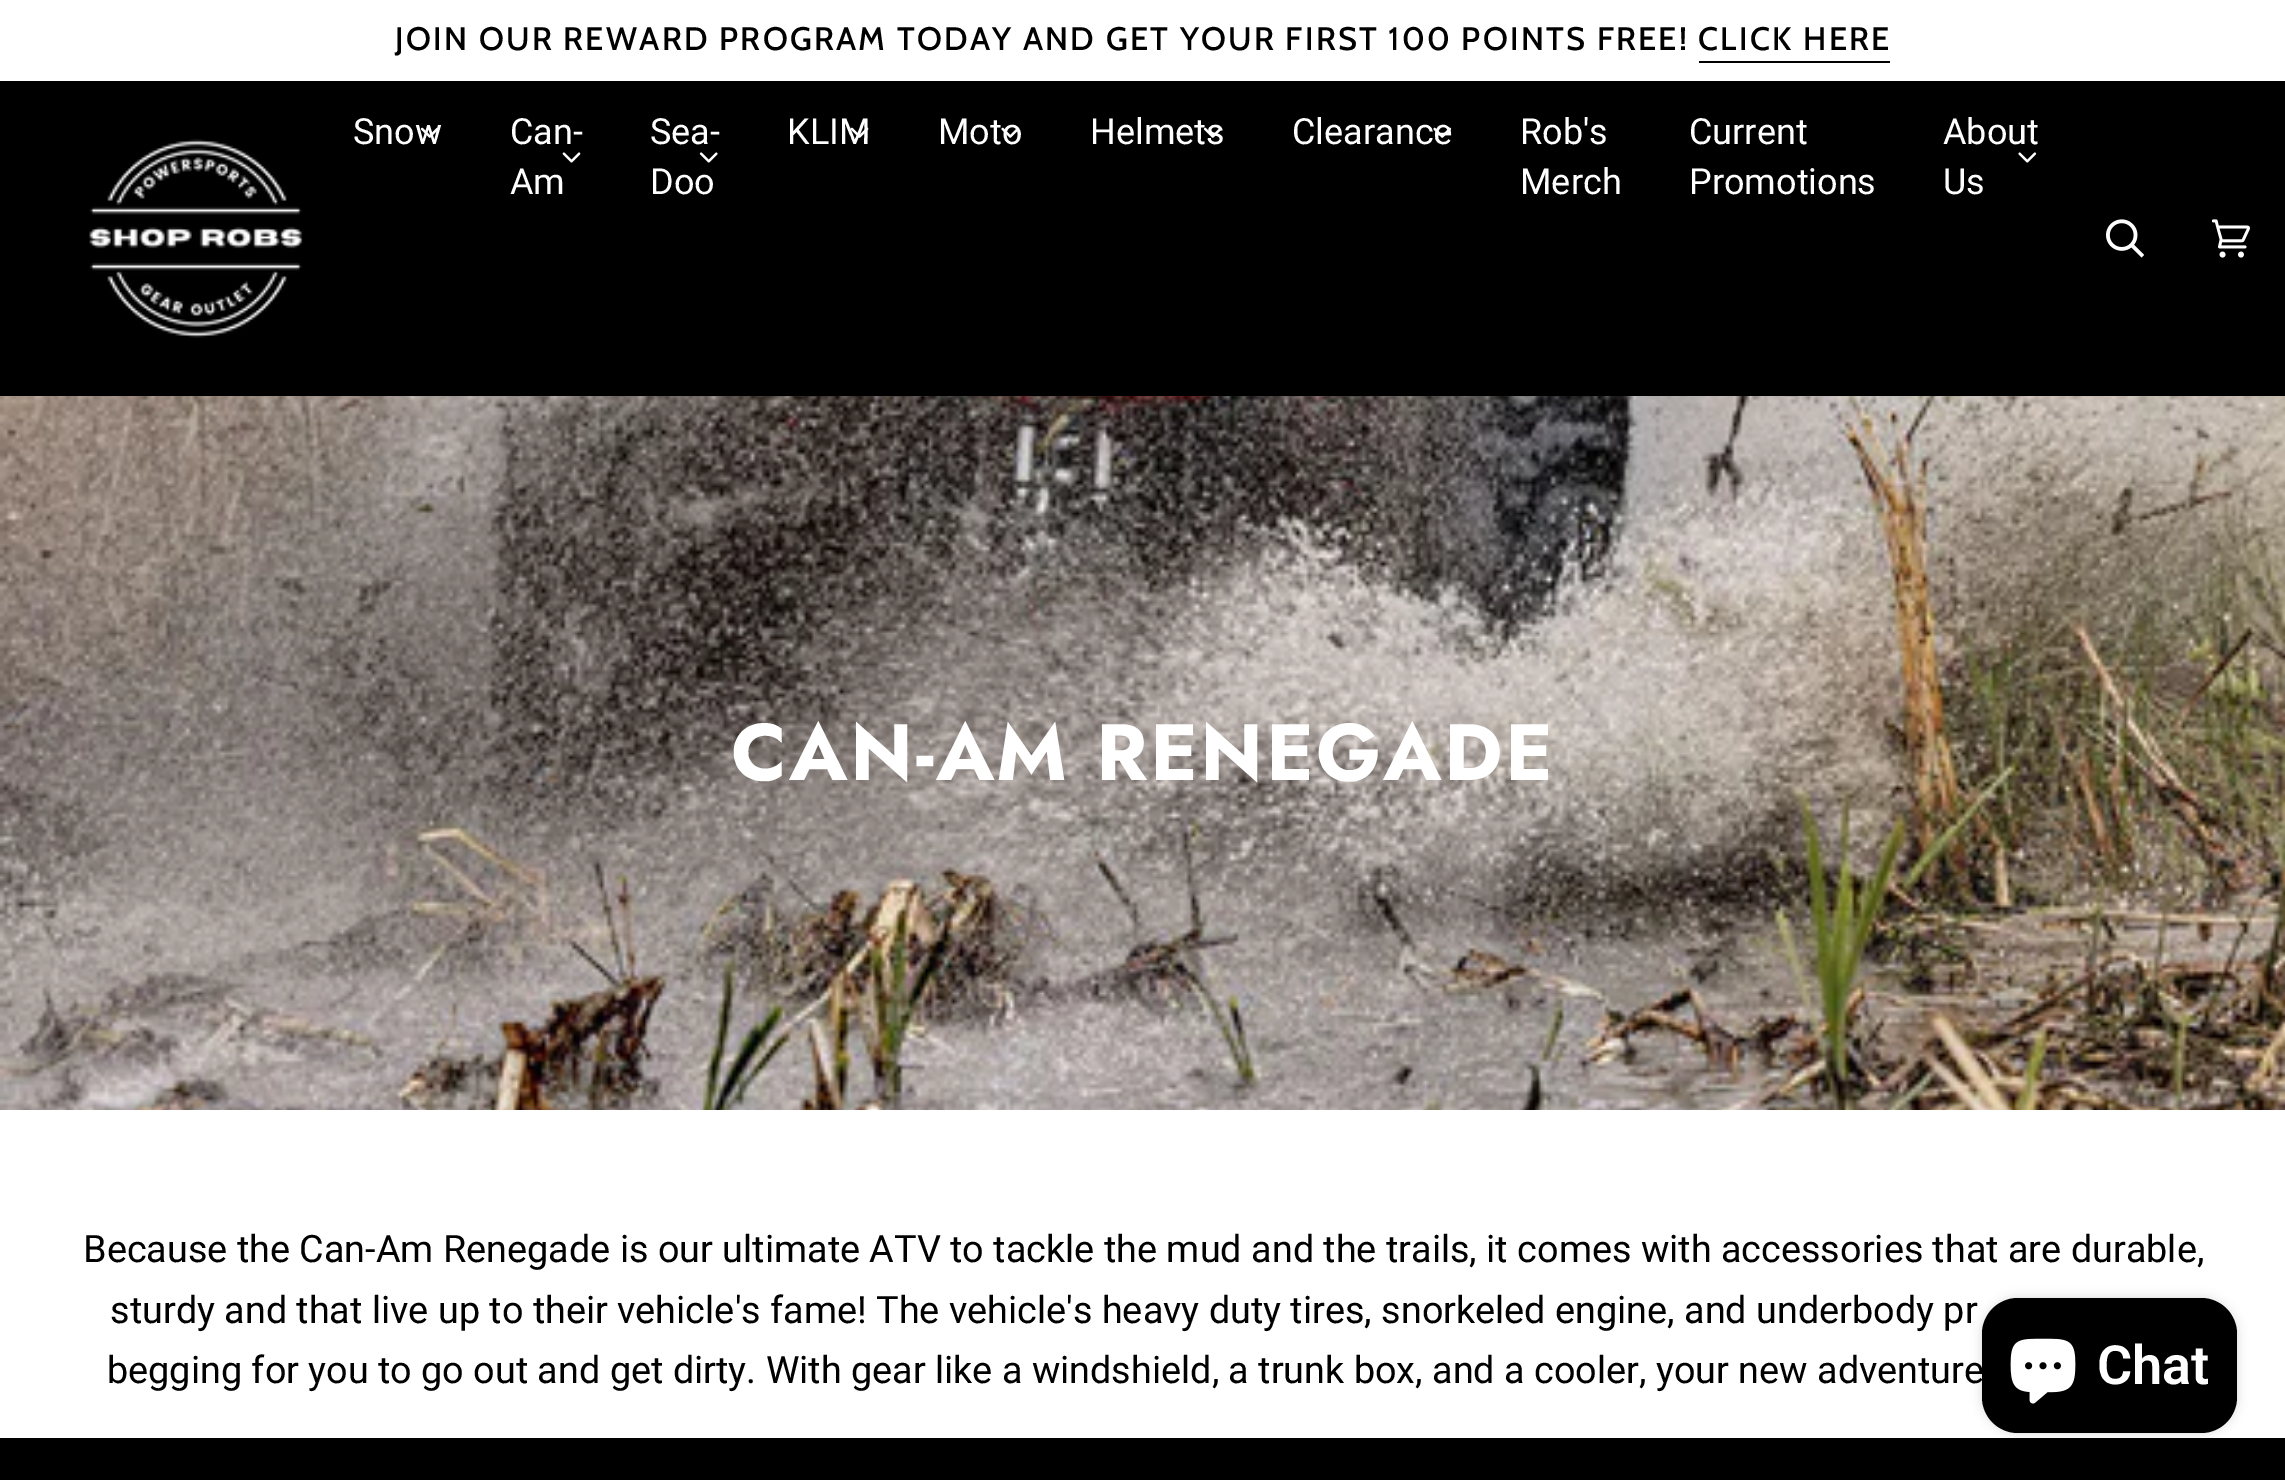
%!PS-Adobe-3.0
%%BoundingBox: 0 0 2285 1480
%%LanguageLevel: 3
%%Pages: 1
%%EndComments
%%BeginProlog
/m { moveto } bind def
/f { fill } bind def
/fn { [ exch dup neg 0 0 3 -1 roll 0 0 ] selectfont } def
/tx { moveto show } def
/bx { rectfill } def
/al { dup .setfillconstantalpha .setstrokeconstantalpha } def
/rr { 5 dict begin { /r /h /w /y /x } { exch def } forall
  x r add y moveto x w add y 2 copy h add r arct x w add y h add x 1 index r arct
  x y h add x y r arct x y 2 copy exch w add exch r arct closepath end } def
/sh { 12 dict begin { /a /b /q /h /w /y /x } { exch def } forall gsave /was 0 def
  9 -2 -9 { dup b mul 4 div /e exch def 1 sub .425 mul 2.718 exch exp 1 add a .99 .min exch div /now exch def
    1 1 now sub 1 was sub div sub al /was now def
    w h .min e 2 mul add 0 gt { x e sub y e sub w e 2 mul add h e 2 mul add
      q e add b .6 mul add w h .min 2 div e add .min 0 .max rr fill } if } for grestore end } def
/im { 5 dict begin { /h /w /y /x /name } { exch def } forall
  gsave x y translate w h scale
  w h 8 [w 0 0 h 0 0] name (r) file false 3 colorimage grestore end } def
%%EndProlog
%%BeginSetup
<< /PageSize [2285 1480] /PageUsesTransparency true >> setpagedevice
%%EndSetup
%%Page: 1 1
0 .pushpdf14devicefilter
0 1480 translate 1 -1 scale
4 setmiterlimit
1 setgray
0 0 2285 1480 bx
/Cabin-Medium 32.55 fn
0 setgray
395 50 m -0.1 0 32 2.25 0 (JOIN OUR REWARD PROGRAM TODAY AND GET YOUR FIRST 100 POINTS FREE!) awidthshow
1698 50 m 2.25 0 (CLICK HERE) ashow
1699 61 191 2 bx
0 81 2285 315 bx
(image0.raw) 89 139 214 199 im
/Roboto-Regular 36 fn
1 setgray
(Snow) 353 144 tx
(image1.raw) 420 127 18 11 im
(Can-) 510 144 tx
(image2.raw) 562 152 19 11 im
(Am) 510 194 tx
(Sea-) 650 144 tx
(image3.raw) 699 152 19 11 im
(Doo) 650 194 tx
(KLIM) 787 144 tx
(image4.raw) 850 127 19 11 im
(Moto) 938 144 tx
(image5.raw) 1001 127 19 11 im
(Helmets) 1090 144 tx
(image6.raw) 1203 127 19 11 im
(Clearance) 1292 144 tx
(image7.raw) 1433 127 19 11 im
(Rob's) 1520 144 tx
(Merch) 1520 194 tx
(Current) 1689 144 tx
(Promotions) 1689 194 tx
(About) 1943 144 tx
(image8.raw) 2018 152 19 11 im
(Us) 1943 194 tx
(image9.raw) 2106 219 38 39 im
(image10.raw) 2212 219 38 39 im
(image11.raw) 0 396 2285 714 im
/Jost-Bold 79.75 fn
731 780 m 2.25 0 (CAN-AM RENEGADE) ashow
/Roboto-Regular 37.8 fn
0 setgray
(Because the Can-Am Renegade is our ultimate ATV to tackle the mud and the trails, it comes with accessories that are durable,) 83 1262 tx
(sturdy and that live up to their vehicle's fame! The vehicle's heavy duty tires, snorkeled engine, and underbody pr) 110 1323 tx
(begging for you to go out and get dirty. With gear like a windshield, a trunk box, and a cooler, your new adventure) 107 1383 tx
0 1438 2285 42 bx
1982 1298 255 135 36 5.5 0.15 sh
1982 1298 255 135 36 rr f
(image12.raw) 2010 1338 66 66 im
/Roboto-SemiBold 54 fn
1 setgray
(Chat) 2097 1384 tx
.poppdf14devicefilter showpage
%%EOF
